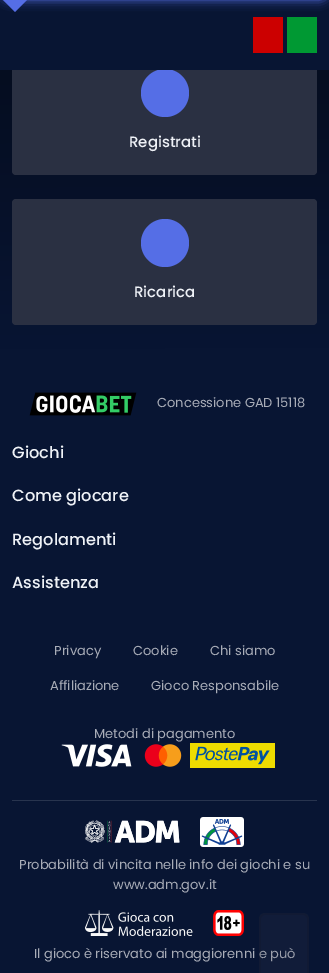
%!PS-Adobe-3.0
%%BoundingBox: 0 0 329 973
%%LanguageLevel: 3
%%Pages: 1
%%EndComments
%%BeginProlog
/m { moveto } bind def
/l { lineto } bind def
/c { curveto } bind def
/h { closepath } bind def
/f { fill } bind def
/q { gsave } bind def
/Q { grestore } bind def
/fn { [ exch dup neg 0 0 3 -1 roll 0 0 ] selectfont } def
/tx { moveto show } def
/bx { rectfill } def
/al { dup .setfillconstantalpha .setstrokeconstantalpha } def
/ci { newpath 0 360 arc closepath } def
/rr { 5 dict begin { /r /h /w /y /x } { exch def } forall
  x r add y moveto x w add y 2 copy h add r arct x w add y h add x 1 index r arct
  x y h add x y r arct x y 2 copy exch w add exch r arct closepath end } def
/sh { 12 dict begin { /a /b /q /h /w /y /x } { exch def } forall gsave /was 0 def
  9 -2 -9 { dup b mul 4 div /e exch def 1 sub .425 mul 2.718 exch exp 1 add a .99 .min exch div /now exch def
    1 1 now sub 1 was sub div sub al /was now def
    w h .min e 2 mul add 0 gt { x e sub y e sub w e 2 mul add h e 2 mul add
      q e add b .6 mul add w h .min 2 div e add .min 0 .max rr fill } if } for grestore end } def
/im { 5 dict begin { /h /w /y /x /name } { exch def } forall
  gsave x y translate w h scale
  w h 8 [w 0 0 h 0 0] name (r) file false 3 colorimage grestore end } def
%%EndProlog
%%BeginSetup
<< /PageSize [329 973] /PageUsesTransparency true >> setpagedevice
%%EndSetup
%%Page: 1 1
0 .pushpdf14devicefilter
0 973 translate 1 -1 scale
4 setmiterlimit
1 setgray
0 0 329 973 bx
q 0 70 m 329 70 l 329 349 l 0 349 l h clip newpath
<< /ShadingType 2 /ColorSpace /DeviceRGB /Coords [164 -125 165 349] /Extend [true true] /Function << /FunctionType 2 /Domain [0 1] /C0 [0.012 0.027 0.071] /C1 [0.031 0.082 0.2] /N 1 >> >> shfill Q
0.165 0.188 0.259 setrgbcolor
12 49 305 126 4 rr f
0.333 0.431 0.902 setrgbcolor
165 93 24 ci f
0.031 0.082 0.2 setrgbcolor
0 0 329 70 bx
0.8 0 0 setrgbcolor
253 17 30 36 bx
0 0.6 0.2 setrgbcolor
287 17 30 36 bx
0.333 0.431 0.902 setrgbcolor
3 0 m 27 0 l 15 12 l h f
0 -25 329 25 10 5 1 sh
/Poppins-Medium 15 fn
0.937 0.949 0.969 setrgbcolor
(Registrati) 129 147 tx
0.165 0.188 0.259 setrgbcolor
12 199 305 126 4 rr f
0.333 0.431 0.902 setrgbcolor
165 243 24 ci f
0.937 0.949 0.969 setrgbcolor
(Ricarica) 134 297 tx
0.031 0.082 0.2 setrgbcolor
0 349 329 624 bx
(image0.raw) 29 392 108 24 im
/Poppins-Regular 13 fn
0.663 0.678 0.722 setrgbcolor
(Concessione GAD 15118) 157 407 tx
/Poppins-Medium 16.25 fn
0.937 0.949 0.969 setrgbcolor
(Giochi) 12 458 tx
(Come giocare) 12 501 tx
(Regolamenti) 12 545 tx
(Assistenza) 12 588 tx
/Poppins-Regular 13 fn
0.663 0.678 0.722 setrgbcolor
(Privacy) 54 655 tx
(Cookie) 133 655 tx
(Chi siamo) 210 655 tx
(Affiliazione) 50 690 tx
(Gioco Responsabile) 151 690 tx
(Metodi di pagamento) 94 738 tx
(image1.raw) 61 744 71 23 im
(image2.raw) 144 744 38 23 im
(image3.raw) 190 743 85 25 im
0.157 0.204 0.306 setrgbcolor
12 800 305 1 bx
(image4.raw) 85 817 159 30 im
0.663 0.678 0.722 setrgbcolor
(Probabilità di vincita nelle info dei giochi e su) 19 869 tx
(www.adm.gov.it) 113 889 tx
(image5.raw) 85 910 159 26 im
(Il gioco è riservato ai maggiorenni e può) 34 958 tx
0.13 al
0.294 0.294 0.373 setrgbcolor
265 913 m 303 913 l 306.5 913 309 915.5 309 919 c 309 973 l 259 973 l 259 919 l 259 915.5 261.5 913 265 913 c h f
0.059 setgray
265 913 m 303 913 l 306 913 309 916 309 919 c 309 973 l 259 973 l 259 919 l 259 916 262 913 265 913 c h 265 915 m 303 915 l 305 915 307 917 307 919 c 307 973 l 261 973 l 261 919 l 261 917 263 915 265 915 c h eofill
.poppdf14devicefilter showpage
%%EOF
